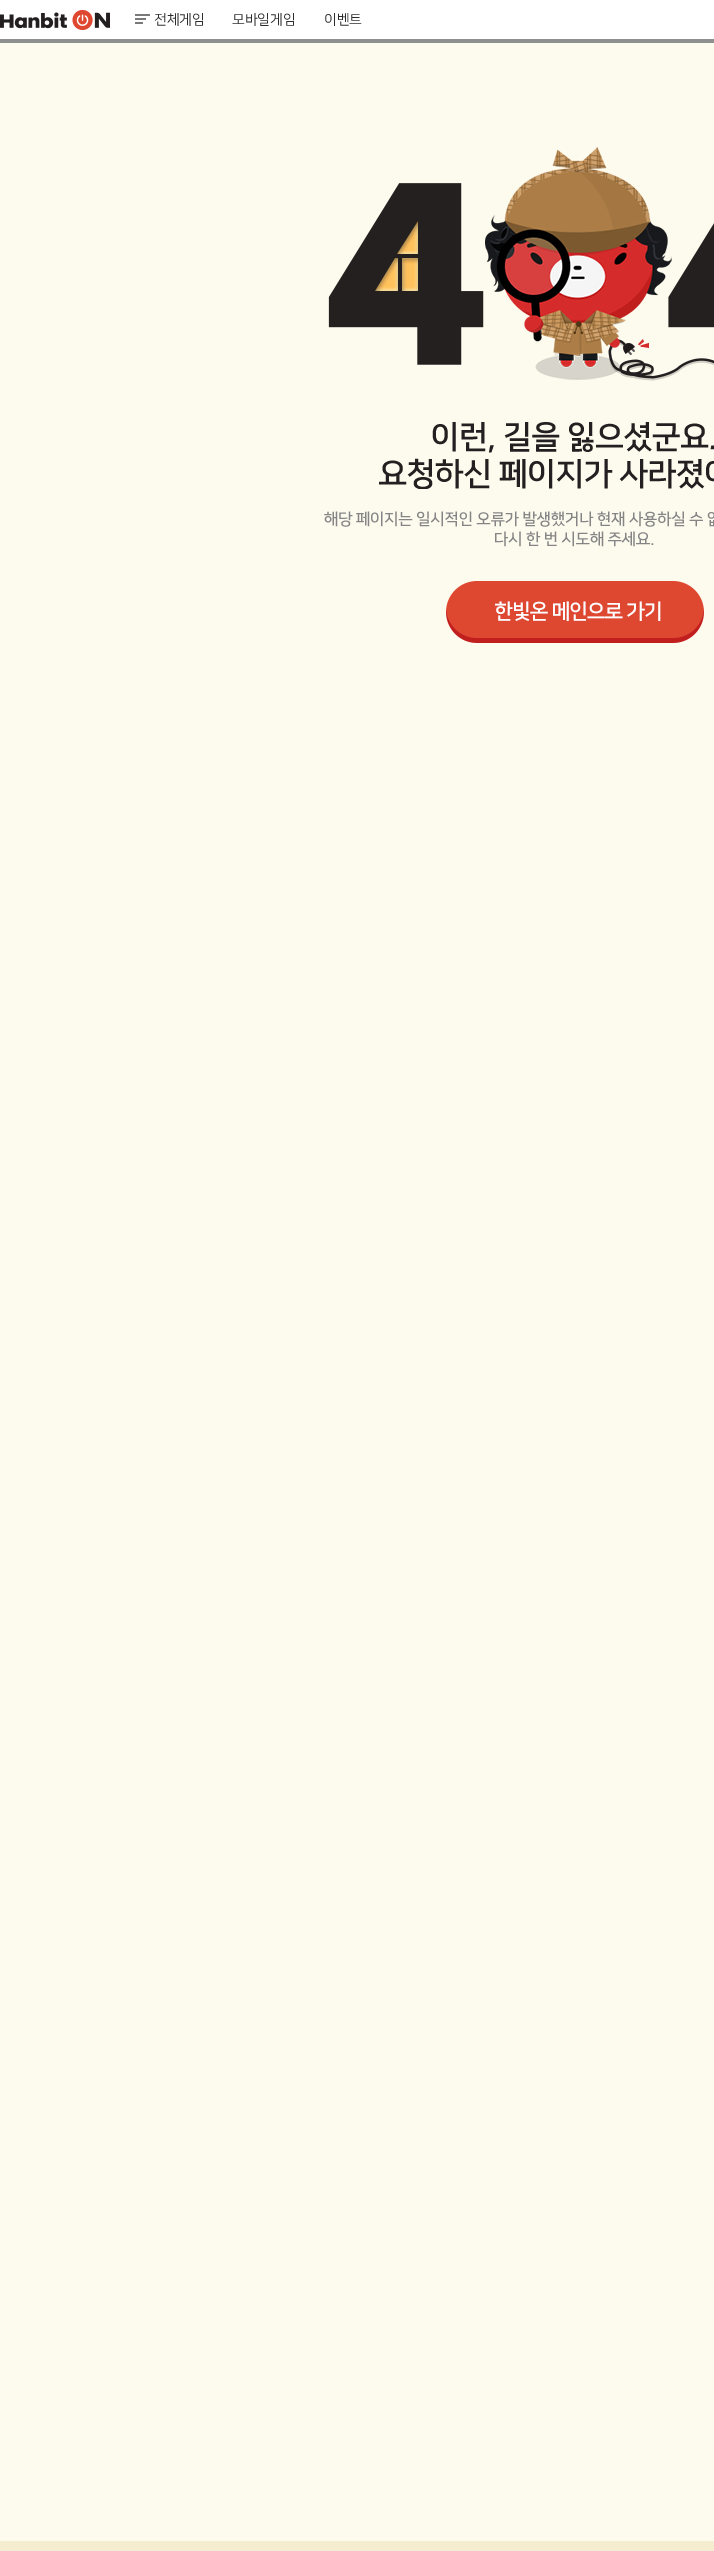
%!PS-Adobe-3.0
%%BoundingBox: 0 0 714 2551
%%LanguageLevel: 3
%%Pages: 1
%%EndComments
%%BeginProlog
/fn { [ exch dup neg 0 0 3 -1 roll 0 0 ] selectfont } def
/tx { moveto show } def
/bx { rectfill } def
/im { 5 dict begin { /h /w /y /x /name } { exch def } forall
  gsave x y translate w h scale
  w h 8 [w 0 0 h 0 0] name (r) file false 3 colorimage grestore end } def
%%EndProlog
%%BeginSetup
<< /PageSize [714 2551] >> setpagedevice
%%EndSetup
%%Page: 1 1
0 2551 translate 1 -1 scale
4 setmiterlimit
1 setgray
0 0 714 2551 bx
0.565 setgray
0 39 714 1 bx
(image0.raw) 0 10 110 20 im
0.475 setgray
135 14 15 2 bx
135 18 11 2 bx
135 22 8 2 bx
/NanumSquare-Regular 14 fn
0.173 setgray
(전체게임) 154 24 tx
(모바일게임) 232 24 tx
(이벤트) 324 24 tx
0.992 0.98 0.933 setrgbcolor
0 43 714 2498 bx
0.557 0.565 0.561 setrgbcolor
0 40 714 3 bx
(image1.raw) 328 147 386 234 im
(image2.raw) 379 422 335 67 im
(image3.raw) 324 511 390 36 im
(image4.raw) 446 581 258 62 im
0.957 0.929 0.812 setrgbcolor
0 2541 714 10 bx
showpage
%%EOF
